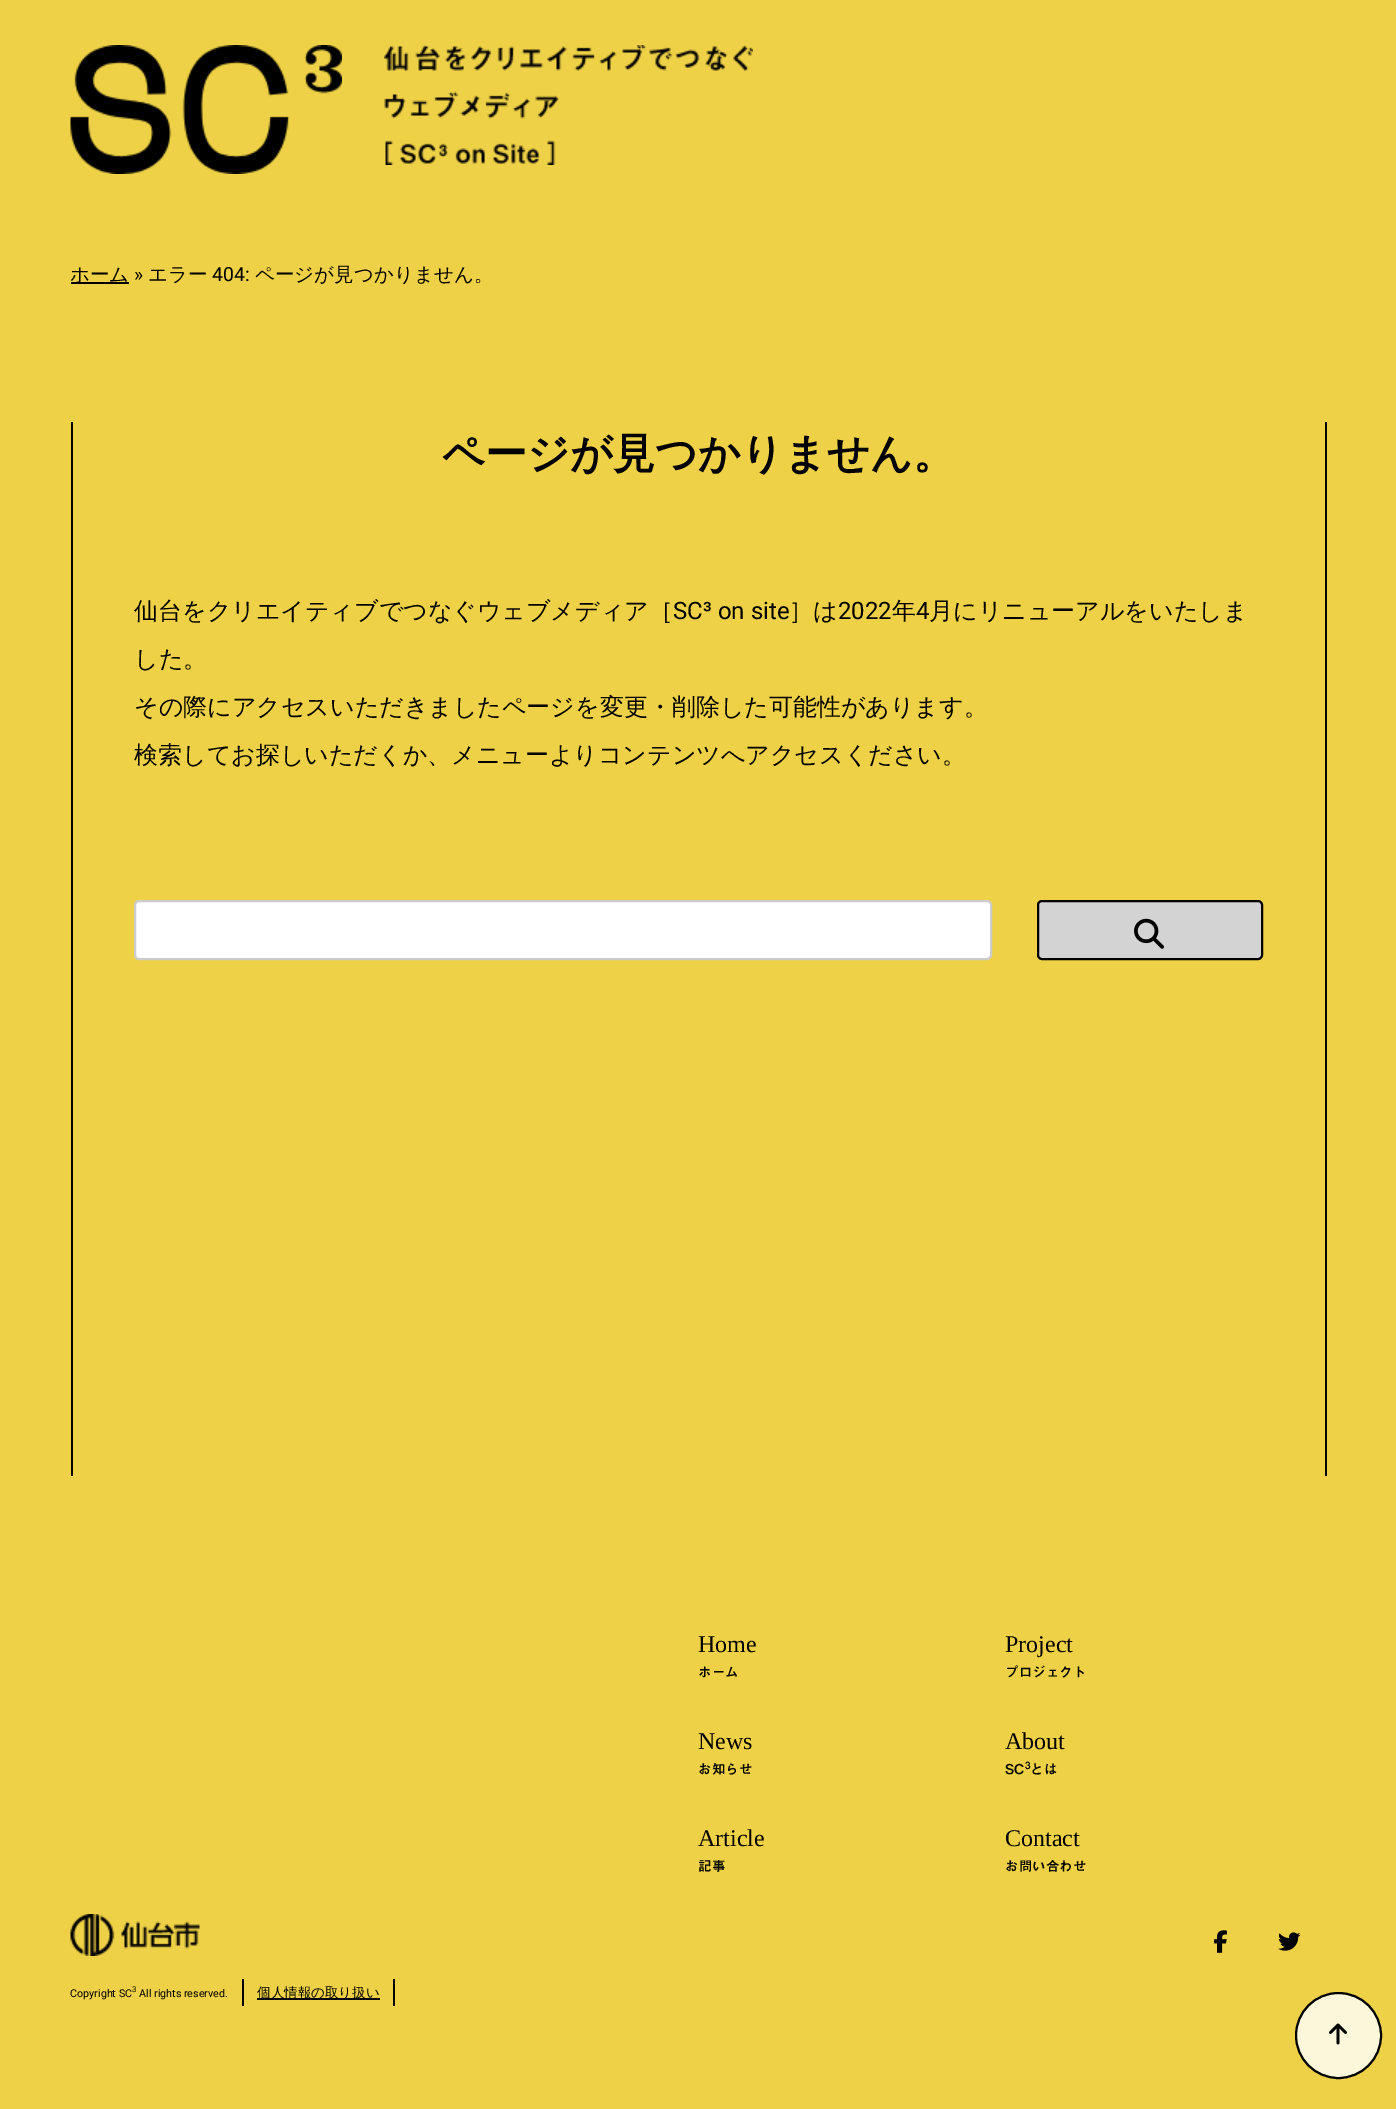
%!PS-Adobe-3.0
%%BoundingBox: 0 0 1396 2109
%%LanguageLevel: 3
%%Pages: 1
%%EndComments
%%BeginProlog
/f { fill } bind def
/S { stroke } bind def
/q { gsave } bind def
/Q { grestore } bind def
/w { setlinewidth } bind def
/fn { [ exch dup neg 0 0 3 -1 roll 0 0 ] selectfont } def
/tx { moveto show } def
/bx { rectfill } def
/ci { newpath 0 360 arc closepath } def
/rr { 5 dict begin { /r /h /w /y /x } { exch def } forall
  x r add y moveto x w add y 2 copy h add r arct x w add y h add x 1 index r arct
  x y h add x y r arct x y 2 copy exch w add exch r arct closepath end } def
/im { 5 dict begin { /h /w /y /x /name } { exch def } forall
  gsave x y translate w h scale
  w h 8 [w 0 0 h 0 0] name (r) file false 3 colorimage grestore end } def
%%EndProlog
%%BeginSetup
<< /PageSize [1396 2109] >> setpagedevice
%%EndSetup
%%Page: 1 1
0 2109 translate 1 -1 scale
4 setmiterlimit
0.933 0.82 0.275 setrgbcolor
0 0 1396 2109 bx
(image0.raw) 70 45 272 129 im
(image1.raw) 384 45 369 120 im
0 setgray
71 282 58 2 bx
/WenQuanYiZenHei-Medium 19.5 fn
(ホーム) 70 281 tx
/Roboto-Regular 19.5 fn
(») 134 281 tx
/WenQuanYiZenHei-Medium 19.5 fn
(エラー) 148 281 tx
/Roboto-Regular 19.5 fn
(404:) 212 281 tx
/WenQuanYiZenHei-Medium 19.5 fn
(ページが見つかりません。) 255 281 tx
1325 422 2 1054 bx
71 422 2 1054 bx
/WenQuanYiZenHei-Bold 42 fn
(ページが見つかりません。) 442 468 tx
/WenQuanYiZenHei-Medium 24 fn
(仙台をクリエイティブでつなぐウェブメディア［) 134 619 tx
/Roboto-Regular 24 fn
(SC³ on site) 673 619 tx
/WenQuanYiZenHei-Medium 24 fn
(］は) 789 619 tx
/Roboto-Regular 24 fn
(2022) 838 619 tx
/WenQuanYiZenHei-Medium 24 fn
(年) 892 619 tx
/Roboto-Regular 24 fn
(4) 916 619 tx
/WenQuanYiZenHei-Medium 24 fn
(月にリニューアルをいたしま) 929 619 tx
(した。) 134 667 tx
(その際にアクセスいただきましたページを変更・削除した可能性があります。) 134 715 tx
(検索してお探しいただくか、メニューよりコンテンツへアクセスください。) 134 763 tx
1 setgray
135 901 856 58 4 rr q f Q
0.8 setgray
2 w
S
0.827 setgray
1038 901 224 58 4 rr q f Q
0 setgray
S
(image2.raw) 1134 918 30 31 im
/LiberationSerif-Regular 24 fn
(Home) 698 1652 tx
/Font-Medium 13.5 fn
(ホーム) 698 1677 tx
/LiberationSerif-Regular 24 fn
(Project) 1005 1652 tx
/Font-Medium 13.5 fn
(プロジェクト) 1005 1677 tx
/LiberationSerif-Regular 24 fn
(News) 698 1749 tx
/Font-Medium 13.5 fn
(お知らせ) 698 1774 tx
/LiberationSerif-Regular 24 fn
(About) 1005 1749 tx
/Font-Medium 13.5 fn
(SC) 1005 1774 tx
/Font-Medium 10 fn
(3) 1025 1769 tx
/Font-Medium 13.5 fn
(とは) 1030 1774 tx
/LiberationSerif-Regular 24 fn
(Article) 698 1846 tx
/Font-Medium 13.5 fn
(記事) 698 1871 tx
/LiberationSerif-Regular 24 fn
(Contact) 1005 1846 tx
/Font-Medium 13.5 fn
(お問い合わせ) 1005 1871 tx
(image3.raw) 70 1914 130 42 im
(image4.raw) 1214 1930 13 23 im
(image5.raw) 1278 1932 23 19 im
242 1979 2 27 bx
/Roboto-Regular 10.75 fn
(Copyright SC) 70 1997 tx
/Roboto-Regular 8 fn
(3) 132 1992 tx
/Roboto-Regular 10.75 fn
(All rights reserved.) 139 1997 tx
393 1979 2 27 bx
257 1998 123 2 bx
/WenQuanYiZenHei-Medium 13.5 fn
(個人情報の取り扱い) 257 1997 tx
0.988 0.965 0.855 setrgbcolor
1338.5 2035.5 42.5 ci q f Q
0 setgray
S
(image6.raw) 1329 2023 18 22 im
showpage
%%EOF
